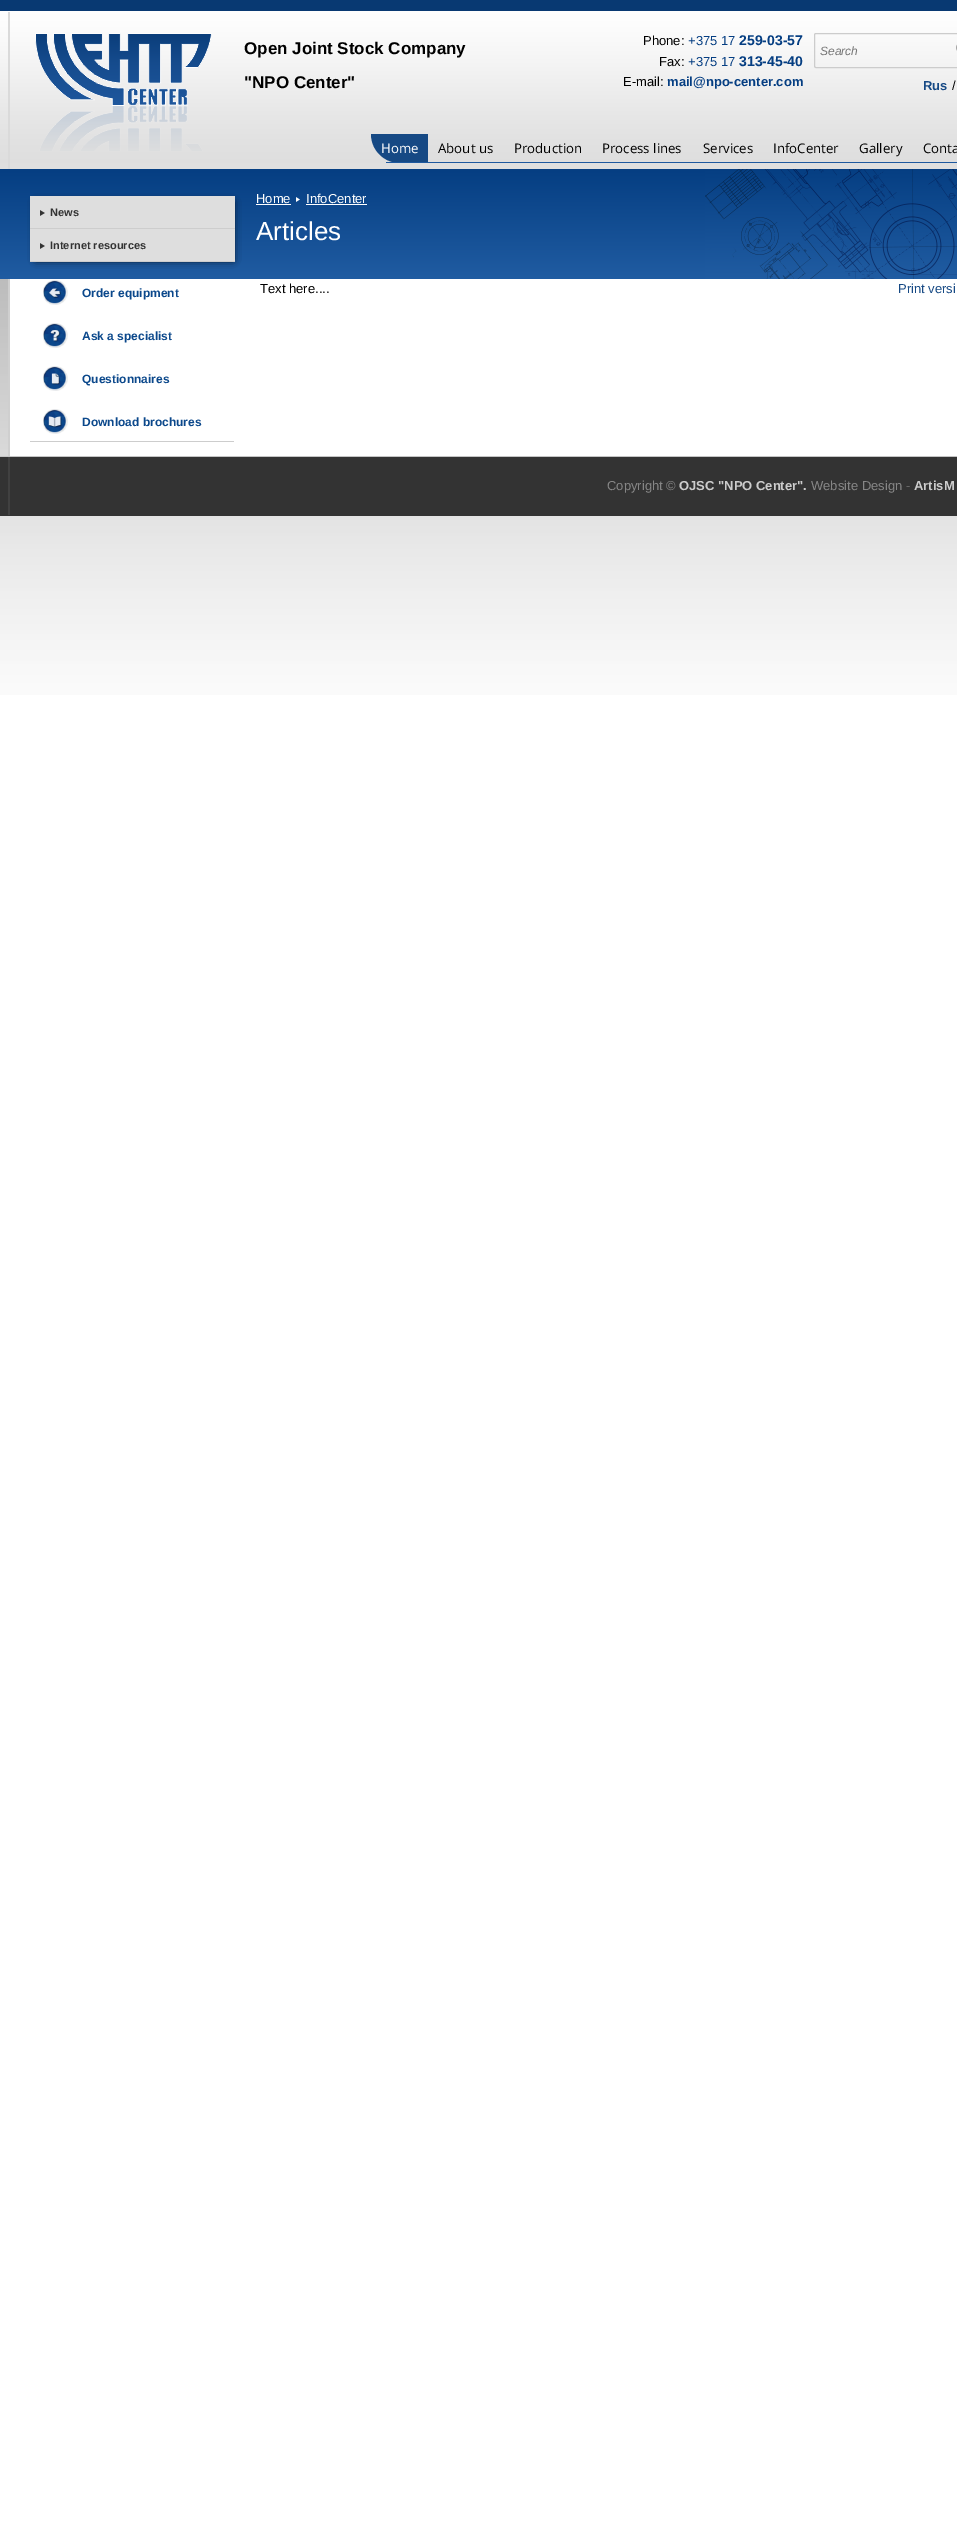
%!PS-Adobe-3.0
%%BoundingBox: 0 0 957 2532
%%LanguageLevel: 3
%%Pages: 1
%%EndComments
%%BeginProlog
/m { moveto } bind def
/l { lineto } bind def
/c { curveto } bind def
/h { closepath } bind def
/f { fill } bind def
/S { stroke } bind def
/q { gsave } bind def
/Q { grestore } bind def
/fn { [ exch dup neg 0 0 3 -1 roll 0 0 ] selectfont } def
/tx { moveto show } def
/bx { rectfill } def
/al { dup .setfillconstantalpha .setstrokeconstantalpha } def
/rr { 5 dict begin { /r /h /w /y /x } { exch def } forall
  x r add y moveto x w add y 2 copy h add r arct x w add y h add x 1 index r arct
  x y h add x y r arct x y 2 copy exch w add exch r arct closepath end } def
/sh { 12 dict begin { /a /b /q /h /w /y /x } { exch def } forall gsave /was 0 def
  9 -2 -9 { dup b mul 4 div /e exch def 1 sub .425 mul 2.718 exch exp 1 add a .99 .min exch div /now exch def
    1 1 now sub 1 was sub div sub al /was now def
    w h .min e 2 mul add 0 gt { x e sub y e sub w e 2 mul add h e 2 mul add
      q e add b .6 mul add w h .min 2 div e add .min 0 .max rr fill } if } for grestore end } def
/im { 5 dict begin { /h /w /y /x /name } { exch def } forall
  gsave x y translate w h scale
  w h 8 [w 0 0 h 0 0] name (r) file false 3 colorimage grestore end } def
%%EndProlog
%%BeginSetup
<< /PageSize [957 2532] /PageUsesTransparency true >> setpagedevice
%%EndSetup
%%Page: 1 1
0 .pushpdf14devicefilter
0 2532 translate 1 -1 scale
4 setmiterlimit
1 setgray
0 0 957 2532 bx
(image0.raw) 0 11 957 684 im
0.031 0.224 0.447 setrgbcolor
0 0 957 11 bx
0.875 setgray
0 163 957 6 bx
0.855 setgray
8 12 2 157 bx
(image1.raw) 35 33 177 118 im
/LiberationSans-Bold 17 fn
0 setgray
(Open Joint Stock Company) 244 54 tx
("NPO Center") 244 88 tx
/LiberationSans-Regular 13 fn
(Phone:) 643 45 tx
0.02 0.243 0.51 setrgbcolor
(+375 17) 688 45 tx
/LiberationSans-Bold 14 fn
(259-03-57) 739 45 tx
/LiberationSans-Regular 13 fn
0 setgray
(Fax:) 659 66 tx
0.02 0.243 0.51 setrgbcolor
(+375 17) 688 66 tx
/LiberationSans-Bold 14 fn
(313-45-40) 739 66 tx
/LiberationSans-Regular 13 fn
0 setgray
(E-mail:) 623 86 tx
/LiberationSans-Bold 13 fn
0.02 0.243 0.51 setrgbcolor
(mail@npo-center.com) 667 86 tx
(image2.raw) 956 44 1 7 im
0.8 setgray
814.5 33.5 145 34 1.5 rr S
/LiberationSans-Italic 12 fn
0.459 setgray
(Search) 820 55 tx
/LiberationSans-Bold 13 fn
0.086 0.286 0.518 setrgbcolor
(Rus) 923 90 tx
/LiberationSans-Regular 13 fn
0 setgray
(/) 952 90 tx
0.086 0.286 0.518 setrgbcolor
371 134 m 428 134 l 428 163 l 400 163 l 384 163 371 150 371 134 c h f
0.114 0.345 0.62 setrgbcolor
386 162 571 1 bx
/OpenSans-Regular 13.25 fn
1 setgray
(Home) 381 153 tx
0 setgray
(About us) 438 153 tx
(Production) 514 153 tx
(Process lines) 602 153 tx
(Services) 703 153 tx
(InfoCenter) 773 153 tx
(Gallery) 859 153 tx
(Conta) 923 153 tx
q 0 169 m 957 169 l 957 279 l 0 279 l h clip newpath
<< /ShadingType 2 /ColorSpace /DeviceRGB /Coords [500 279 500 169] /Extend [true true] /Function << /FunctionType 2 /Domain [0 1] /C0 [0.125 0.361 0.635] /C1 [0.02 0.243 0.51] /N 1 >> >> shfill Q
(image3.raw) 705 169 252 110 im
/LiberationSans-Regular 13 fn
1 setgray
(Home) 256 203 tx
256 204 35 1 bx
(image4.raw) 296 197 4 5 im
(InfoCenter) 306 203 tx
306 204 61 1 bx
/LiberationSans-Regular 26 fn
(Articles) 256 240 tx
10 279 947 177 bx
0.812 setgray
8 279 2 177 bx
0 setgray
36 202 197 58 0 4 1 sh
0.871 setgray
30 196 205 65 bx
0.804 setgray
30 228 205 1 bx
(image5.raw) 40 210 5 6 im
/LiberationSans-Bold 11 fn
0.2 setgray
(News) 50 216 tx
0.804 setgray
30 261 205 1 bx
(image5.raw) 40 243 5 6 im
0.2 setgray
(Internet resources) 50 249 tx
(image6.raw) 43 280 25 25 im
/LiberationSans-Bold 12 fn
0.043 0.282 0.545 setrgbcolor
(Order equipment) 82 297 tx
(image7.raw) 43 323 25 25 im
(Ask a specialist) 82 340 tx
(image8.raw) 43 366 25 25 im
(Questionnaires) 82 383 tx
0.804 setgray
30 441 204 1 bx
(image9.raw) 43 409 25 25 im
0.043 0.282 0.545 setrgbcolor
(Download brochures) 82 426 tx
/LiberationSans-Regular 13 fn
0 setgray
(Text here....) 260 293 tx
0.086 0.286 0.518 setrgbcolor
(Print versi) 898 293 tx
0.2 setgray
0 457 957 59 bx
0.769 setgray
0 456 957 1 bx
0.255 setgray
8 457 2 58 bx
0.525 setgray
(Copyright ©) 607 490 tx
/LiberationSans-Bold 13 fn
0.8 setgray
(OJSC "NPO Center".) 679 490 tx
/LiberationSans-Regular 13 fn
0.525 setgray
(Website Design) 811 490 tx
0.4 setgray
(-) 906 490 tx
/LiberationSans-Bold 13 fn
0.8 setgray
(ArtisM) 914 490 tx
.poppdf14devicefilter showpage
%%EOF
